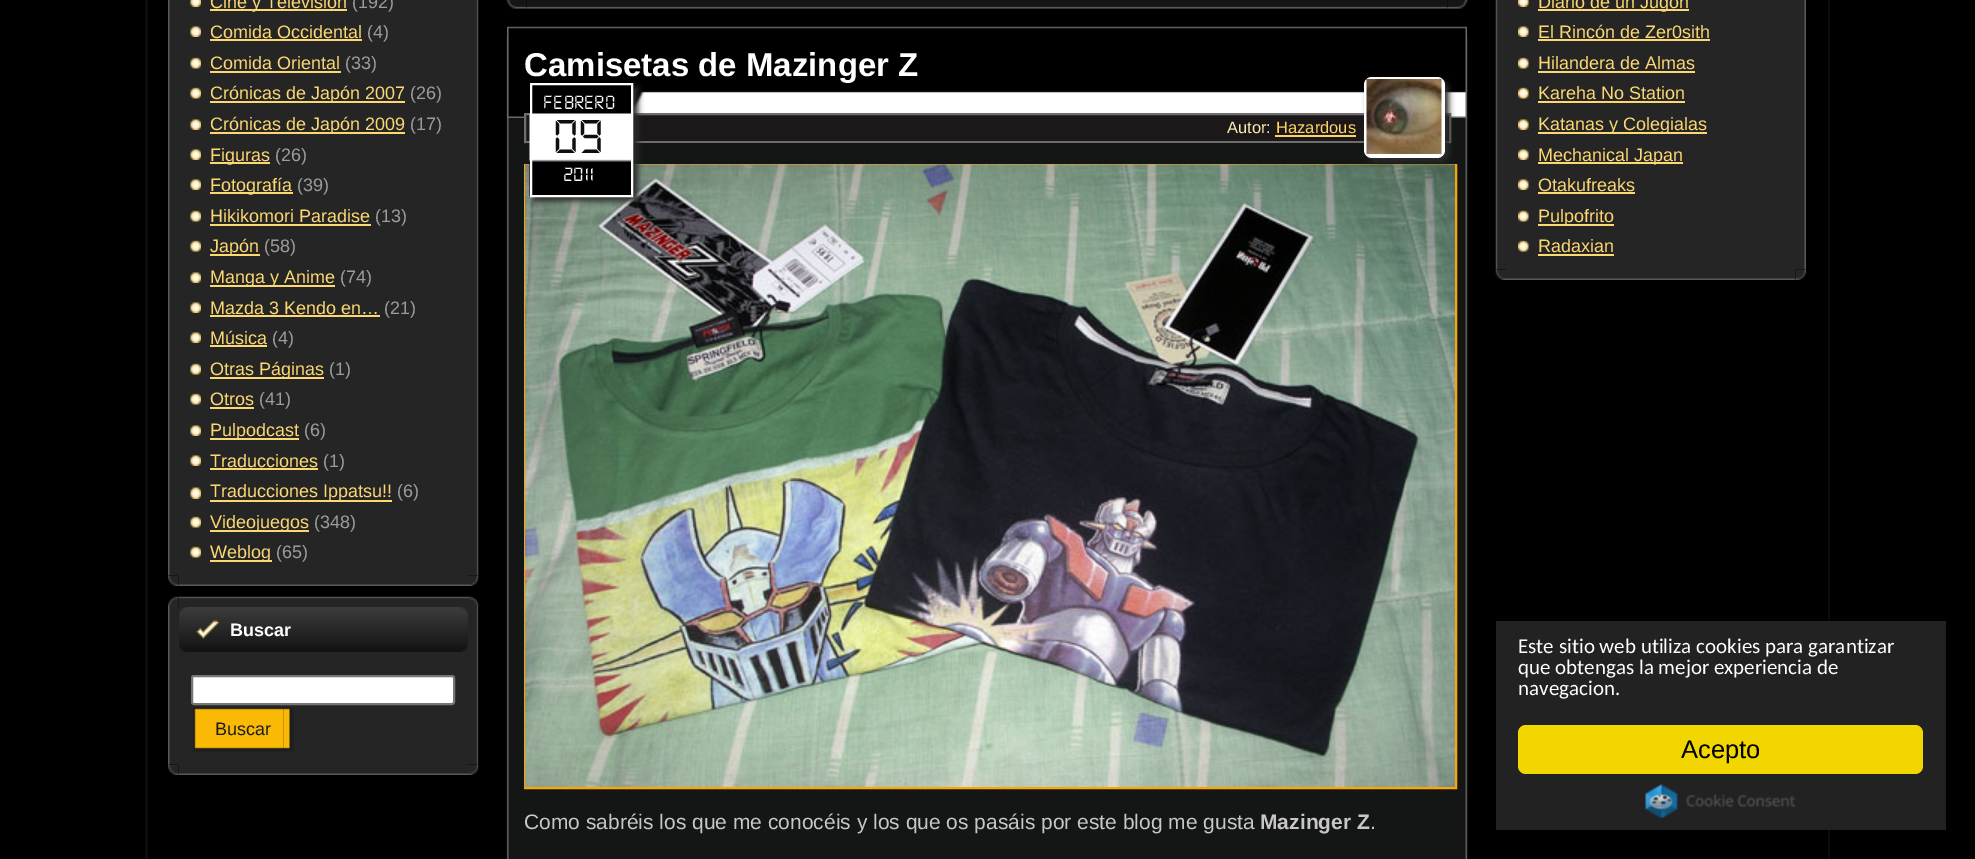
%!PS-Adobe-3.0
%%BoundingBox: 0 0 1975 859
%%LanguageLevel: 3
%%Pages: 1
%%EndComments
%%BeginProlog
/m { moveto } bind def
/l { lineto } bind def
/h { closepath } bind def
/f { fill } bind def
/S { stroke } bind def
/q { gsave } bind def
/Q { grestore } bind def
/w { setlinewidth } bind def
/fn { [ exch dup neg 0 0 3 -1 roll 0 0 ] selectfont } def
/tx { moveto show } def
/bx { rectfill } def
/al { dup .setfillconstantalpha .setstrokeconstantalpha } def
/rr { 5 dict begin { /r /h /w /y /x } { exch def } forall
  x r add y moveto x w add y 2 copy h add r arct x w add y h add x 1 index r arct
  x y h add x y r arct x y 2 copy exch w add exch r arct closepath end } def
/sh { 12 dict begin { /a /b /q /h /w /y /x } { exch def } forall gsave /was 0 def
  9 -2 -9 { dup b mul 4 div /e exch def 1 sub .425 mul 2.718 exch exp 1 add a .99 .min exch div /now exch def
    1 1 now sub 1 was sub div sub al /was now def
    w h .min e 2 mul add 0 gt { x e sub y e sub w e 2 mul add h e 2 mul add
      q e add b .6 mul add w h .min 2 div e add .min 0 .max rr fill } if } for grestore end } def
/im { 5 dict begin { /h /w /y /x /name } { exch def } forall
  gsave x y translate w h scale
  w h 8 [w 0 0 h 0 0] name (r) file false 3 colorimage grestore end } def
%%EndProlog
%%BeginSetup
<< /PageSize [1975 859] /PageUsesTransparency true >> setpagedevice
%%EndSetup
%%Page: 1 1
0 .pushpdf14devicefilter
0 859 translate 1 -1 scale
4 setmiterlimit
0 setgray
0 0 1975 859 bx
0.047 0.051 0.055 setrgbcolor
145 0 3 859 bx
0.145 setgray
178 0 290 576 bx
(image6.raw) 168 575 11 11 im
(image0.raw) 168 0 10 576 im
(image1.raw) 190 0 11 7 im
0.988 0.847 0.451 setrgbcolor
210 9 137 2 bx
/LiberationSans-Regular 18 fn
(Cine y Televisión) 210 8 tx
0.612 setgray
(\(192\)) 352 8 tx
(image2.raw) 190 26 11 11 im
0.988 0.847 0.451 setrgbcolor
(Comida Occidental) 210 38 tx
210 39 152 2 bx
0.612 setgray
(\(4\)) 367 38 tx
(image3.raw) 190 57 11 12 im
0.988 0.847 0.451 setrgbcolor
(Comida Oriental) 210 69 tx
210 71 131 2 bx
0.612 setgray
(\(33\)) 345 69 tx
(image3.raw) 190 87 11 12 im
0.988 0.847 0.451 setrgbcolor
210 101 195 2 bx
(Crónicas de Japón 2007) 210 99 tx
0.612 setgray
(\(26\)) 410 99 tx
(image2.raw) 190 119 11 11 im
0.988 0.847 0.451 setrgbcolor
210 132 195 2 bx
(Crónicas de Japón 2009) 210 130 tx
0.612 setgray
(\(17\)) 410 130 tx
(image2.raw) 190 149 11 11 im
0.988 0.847 0.451 setrgbcolor
210 162 60 2 bx
(Figuras) 210 161 tx
0.612 setgray
(\(26\)) 275 161 tx
(image2.raw) 190 179 11 11 im
0.988 0.847 0.451 setrgbcolor
210 192 83 2 bx
(Fotografía) 210 191 tx
0.612 setgray
(\(39\)) 297 191 tx
(image3.raw) 190 210 11 12 im
0.988 0.847 0.451 setrgbcolor
(Hikikomori Paradise) 210 222 tx
210 224 161 2 bx
0.612 setgray
(\(13\)) 375 222 tx
(image3.raw) 190 240 11 12 im
0.988 0.847 0.451 setrgbcolor
210 254 50 2 bx
(Japón) 210 252 tx
0.612 setgray
(\(58\)) 264 252 tx
(image2.raw) 190 272 11 11 im
0.988 0.847 0.451 setrgbcolor
210 285 125 2 bx
(Manga y Anime) 210 283 tx
0.612 setgray
(\(74\)) 340 283 tx
(image2.raw) 190 302 11 11 im
0.988 0.847 0.451 setrgbcolor
(Mazda 3 Kendo en…) 210 314 tx
210 315 170 2 bx
0.612 setgray
(\(21\)) 384 314 tx
(image2.raw) 190 332 11 11 im
0.988 0.847 0.451 setrgbcolor
(Música) 210 344 tx
210 345 57 2 bx
0.612 setgray
(\(4\)) 272 344 tx
(image3.raw) 190 363 11 12 im
0.988 0.847 0.451 setrgbcolor
210 377 114 2 bx
(Otras Páginas) 210 375 tx
0.612 setgray
(\(1\)) 329 375 tx
(image3.raw) 190 393 11 12 im
0.988 0.847 0.451 setrgbcolor
(Otros) 210 405 tx
210 407 44 2 bx
0.612 setgray
(\(41\)) 259 405 tx
(image2.raw) 190 425 11 11 im
0.988 0.847 0.451 setrgbcolor
210 438 89 2 bx
(Pulpodcast) 210 436 tx
0.612 setgray
(\(6\)) 304 436 tx
(image2.raw) 190 455 11 11 im
0.988 0.847 0.451 setrgbcolor
(Traducciones) 210 467 tx
210 468 108 2 bx
0.612 setgray
(\(1\)) 323 467 tx
(image4.raw) 190 487 11 12 im
0.988 0.847 0.451 setrgbcolor
210 500 182 2 bx
(Traducciones Ippatsu!!) 210 497 tx
0.612 setgray
(\(6\)) 397 497 tx
(image3.raw) 190 516 11 12 im
0.988 0.847 0.451 setrgbcolor
210 530 99 2 bx
(Videojuegos) 210 528 tx
0.612 setgray
(\(348\)) 314 528 tx
(image3.raw) 190 546 11 12 im
0.988 0.847 0.451 setrgbcolor
210 560 62 2 bx
(Weblog) 210 558 tx
0.612 setgray
(\(65\)) 276 558 tx
(image8.raw) 468 575 11 11 im
(image5.raw) 468 0 11 576 im
(image7.raw) 178 576 290 10 im
(image9.raw) 168 596 11 11 im
(image10.raw) 178 596 290 11 im
(image11.raw) 468 596 11 11 im
0.145 setgray
178 607 290 158 bx
(image6.raw) 168 764 11 11 im
(image12.raw) 168 607 10 158 im
(image8.raw) 468 764 11 11 im
(image13.raw) 468 607 11 158 im
(image14.raw) 179 607 280 45 im
(image15.raw) 459 607 9 45 im
(image16.raw) 196 620 23 19 im
/LiberationSans-Bold 18 fn
1 setgray
(Buscar) 230 636 tx
192 676 262 28 2 rr q f Q
0.463 setgray
2 w
S
(image18.raw) 283 707 11 45 im
(image17.raw) 193 707 91 45 im
/LiberationSans-Regular 18 fn
0.11 setgray
(Buscar) 215 735 tx
(image7.raw) 178 765 290 10 im
(image19.raw) 506 0 21 9 im
(image21.raw) 1447 0 21 9 im
(image20.raw) 526 0 922 9 im
(image22.raw) 506 32 1 17 im
(image23.raw) 1467 31 1 18 im
(image24.raw) 506 49 20 810 im
(image29.raw) 1448 49 20 810 im
(image25.raw) 507 26 960 92 im
/LiberationSans-Bold 33 fn
1 setgray
(Camisetas de Mazinger Z) 524 76 tx
0.11 0.09 0.094 setrgbcolor
525 114 m 1450 114 l 1450 142 l 525 142 l h q f Q
0.431 setgray
S
0.075 0.086 0.082 setrgbcolor
526 143 922 716 bx
1 0.647 0 setrgbcolor
525 165 931 623 rectstroke
0.165 setgray
1368 81 81 81 8 3 1 sh
(image28.raw) 525 164 930 623 im
q
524 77 m 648 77 l 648 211 l 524 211 l h 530 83 m 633 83 l 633 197 l 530 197 l h eoclip newpath
534 87 104 114 0 3 1 sh
Q
(image26.raw) 529 106 102 90 im
1 setgray
531 84 101 112 rectstroke
/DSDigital-Regular 21 fn
(febrero) 543 109 tx
/DSDigital-Regular 52 fn
0.055 setgray
(09) 553 153 tx
/DSDigital-Regular 21 fn
1 setgray
(2011) 563 181 tx
/LiberationSans-Regular 16.5 fn
0.992 0.918 0.706 setrgbcolor
(Autor:) 1227 133 tx
0.988 0.827 0.392 setrgbcolor
(Hazardous) 1276 133 tx
1275 135 81 2 bx
1 setgray
1364 77 81 81 8 rr f
(image27.raw) 1366 79 76 75 im
/LiberationSans-Regular 21 fn
0.78 setgray
(Como sabréis los que me conocéis y los que os pasáis por este blog me gusta) 524 829 tx
/LiberationSans-Bold 21 fn
(Mazinger Z) 1260 829 tx
/LiberationSans-Regular 21 fn
(.) 1370 829 tx
(image35.raw) 1495 269 11 11 im
(image30.raw) 1495 0 11 270 im
0.145 setgray
1506 0 290 270 bx
(image31.raw) 1518 0 11 7 im
0.988 0.847 0.451 setrgbcolor
1538 9 151 2 bx
/LiberationSans-Regular 18 fn
(Diario de un Jugón) 1538 8 tx
(image32.raw) 1518 26 11 11 im
(El Rincón de Zer0sith) 1538 38 tx
1538 39 172 2 bx
(image33.raw) 1518 57 11 12 im
(Hilandera de Almas) 1538 69 tx
1538 71 157 2 bx
(image33.raw) 1518 87 11 12 im
(Kareha No Station) 1538 99 tx
1538 101 147 2 bx
(image32.raw) 1518 119 11 11 im
1538 132 169 2 bx
(Katanas y Colegialas) 1538 130 tx
(image32.raw) 1518 149 11 11 im
1538 162 145 2 bx
(Mechanical Japan) 1538 161 tx
(image32.raw) 1518 179 11 11 im
(Otakufreaks) 1538 191 tx
1538 192 97 2 bx
(image33.raw) 1518 210 11 12 im
1538 224 76 2 bx
(Pulpofrito) 1538 222 tx
(image33.raw) 1518 240 11 12 im
(Radaxian) 1538 252 tx
1538 254 76 2 bx
(image37.raw) 1795 269 11 11 im
(image34.raw) 1796 0 10 270 im
(image36.raw) 1506 270 290 10 im
(image38.raw) 1828 0 2 859 im
0.133 setgray
1496 621 450 209 bx
/Carlito-Regular 21 fn
1 setgray
(Este sitio web utiliza cookies para garantizar) 1518 653 tx
(que obtengas la mejor experiencia de) 1518 674 tx
(navegacion.) 1518 695 tx
0.945 0.839 0 setrgbcolor
1518 725 405 49 8 rr f
/LiberationSans-Regular 25.5 fn
0 setgray
(Acepto) 1681 758 tx
(image39.raw) 1645 784 151 34 im
.poppdf14devicefilter showpage
%%EOF
